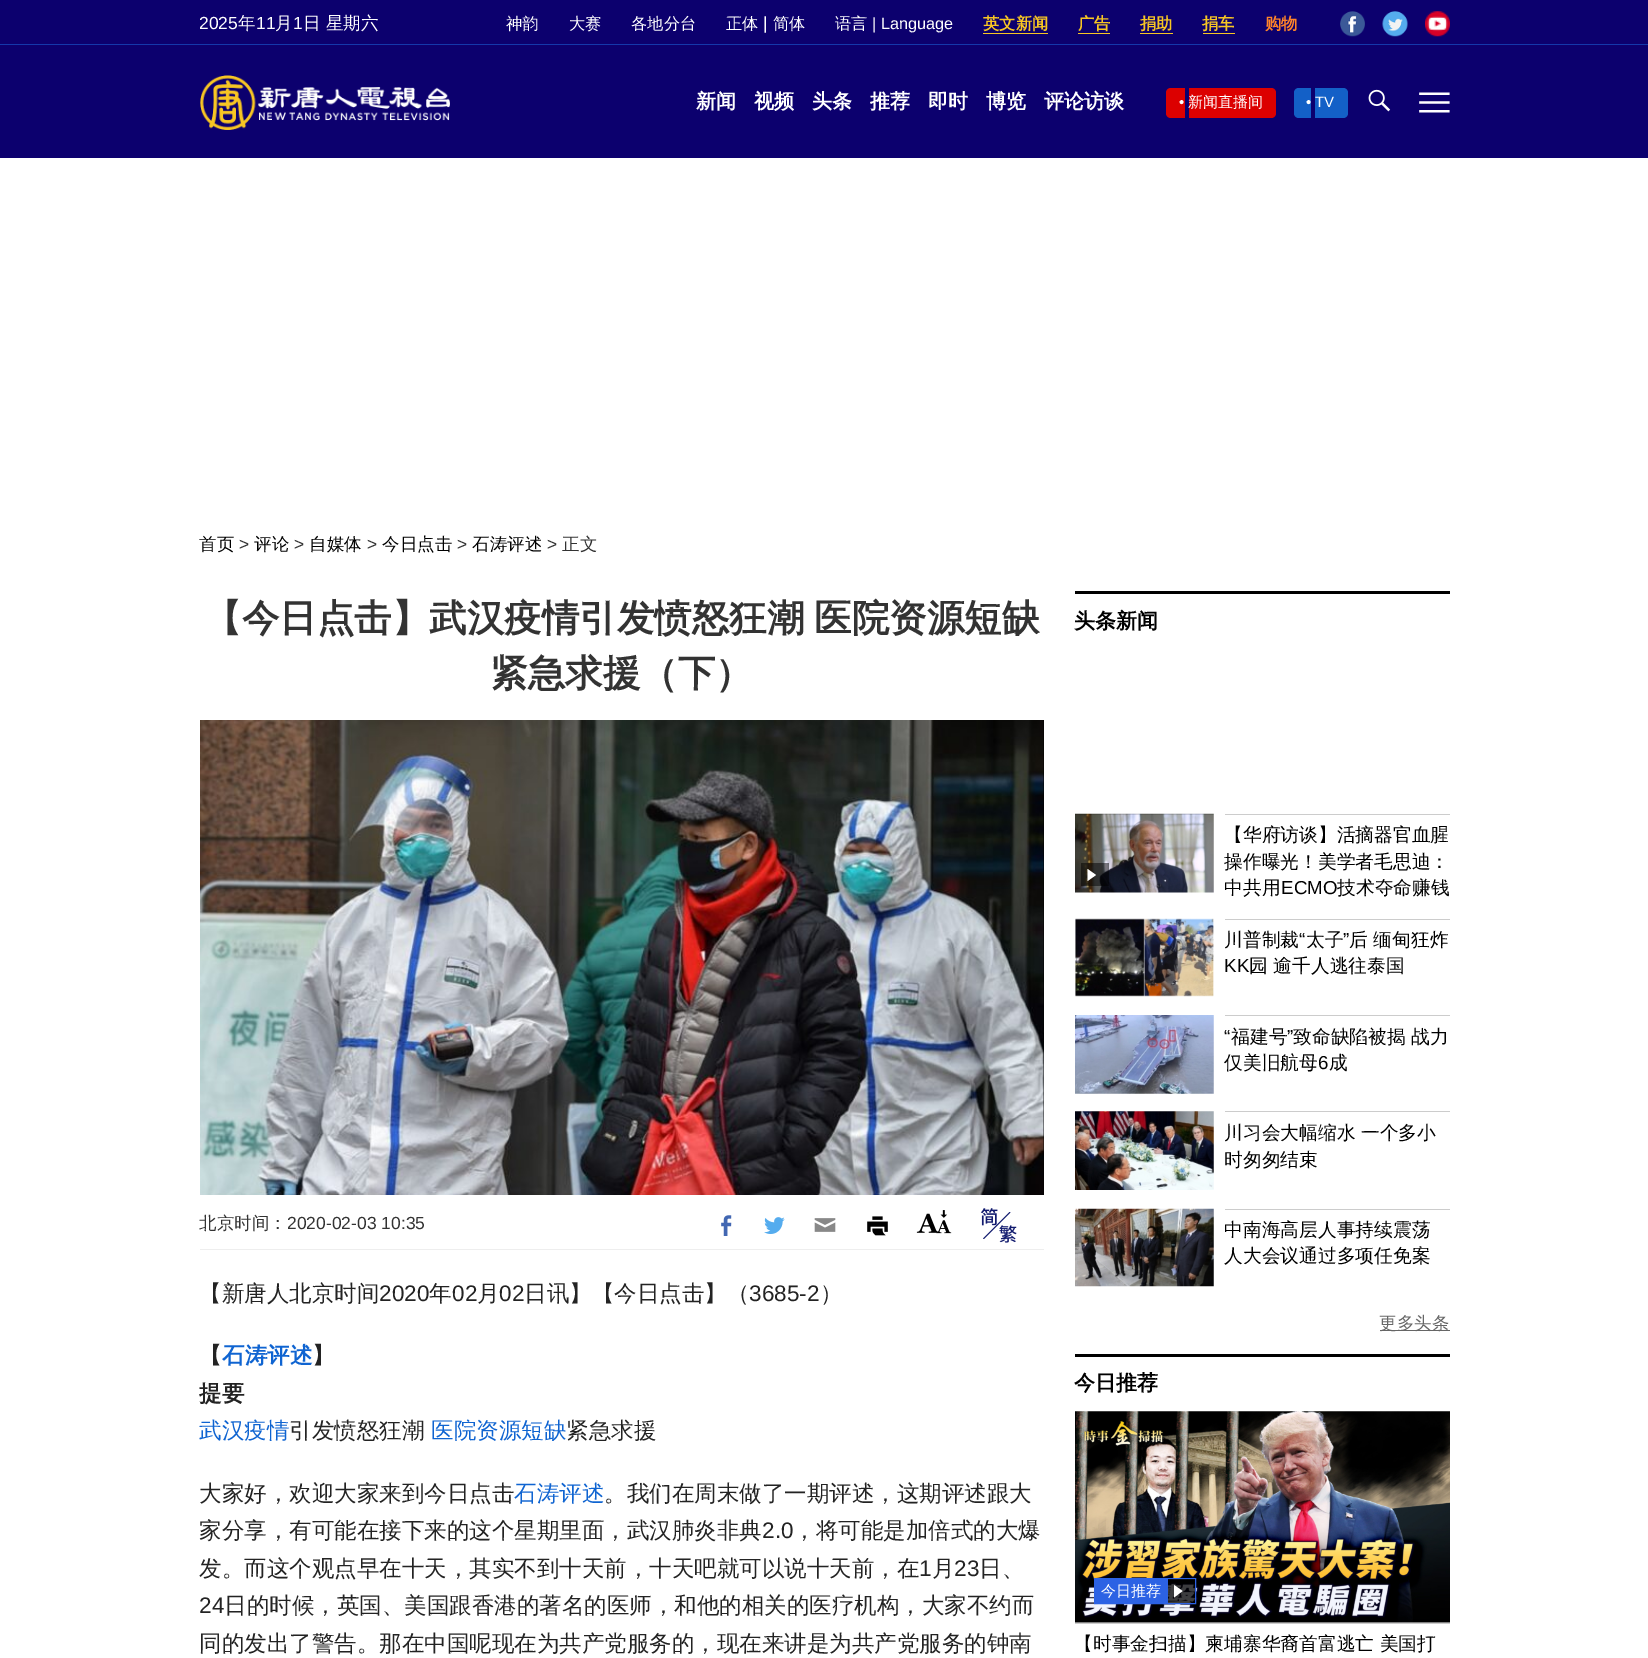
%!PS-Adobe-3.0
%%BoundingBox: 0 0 1648 1658
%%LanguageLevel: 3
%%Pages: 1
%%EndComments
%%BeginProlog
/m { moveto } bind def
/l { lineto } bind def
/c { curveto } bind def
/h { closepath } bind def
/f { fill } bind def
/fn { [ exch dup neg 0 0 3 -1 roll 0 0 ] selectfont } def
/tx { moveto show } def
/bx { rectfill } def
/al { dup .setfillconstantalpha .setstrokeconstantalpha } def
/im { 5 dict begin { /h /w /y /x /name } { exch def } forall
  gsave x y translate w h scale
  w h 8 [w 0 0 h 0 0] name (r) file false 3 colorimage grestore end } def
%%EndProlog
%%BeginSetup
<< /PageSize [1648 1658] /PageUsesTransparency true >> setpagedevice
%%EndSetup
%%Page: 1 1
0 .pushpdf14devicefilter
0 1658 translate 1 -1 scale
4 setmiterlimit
1 setgray
0 0 1648 1658 bx
0.047 0 0.431 setrgbcolor
0 0 1648 158 bx
0.078 0.22 0.667 setrgbcolor
0 44 1648 1 bx
/LiberationSans-Regular 17.5 fn
1 setgray
(2025) 199 29 tx
/WenQuanYiZenHei-Medium 17.5 fn
(年) 238 29 tx
/LiberationSans-Regular 17.5 fn
(11) 256 29 tx
/WenQuanYiZenHei-Medium 17.5 fn
(月) 275 29 tx
/LiberationSans-Regular 17.5 fn
(1) 293 29 tx
/WenQuanYiZenHei-Medium 17.5 fn
(日 星期六) 303 29 tx
/WenQuanYiZenHei-Medium 16.25 fn
(神韵) 506 29 tx
(大赛) 569 29 tx
(各地分台) 631 29 tx
(正体) 726 29 tx
/LiberationSans-Regular 17.5 fn
(|) 763 29 tx
/WenQuanYiZenHei-Medium 16.25 fn
(简体) 773 29 tx
(语言) 835 29 tx
/LiberationSans-Regular 16.25 fn
(| Language) 872 29 tx
/WenQuanYiZenHei-Bold 16.25 fn
0.973 0.776 0.137 setrgbcolor
(英文新闻) 983 29 tx
983 33 65 1 bx
(广告) 1078 29 tx
1078 33 32 1 bx
(捐助) 1140 29 tx
1140 33 33 1 bx
(捐车) 1202 29 tx
1203 33 32 1 bx
1 0.518 0.161 setrgbcolor
(购物) 1265 29 tx
(image0.raw) 1340 11 25 26 im
(image1.raw) 1382 11 26 26 im
(image2.raw) 1425 11 25 26 im
(image3.raw) 200 75 250 55 im
/WenQuanYiZenHei-Bold 20 fn
1 setgray
(新闻) 696 108 tx
(视频) 754 108 tx
(头条) 812 108 tx
(推荐) 870 108 tx
(即时) 928 108 tx
(博览) 986 108 tx
(评论访谈) 1044 108 tx
0.863 0 0 setrgbcolor
1171 88 m 1185 88 l 1185 118 l 1171 118 l 1168 118 1166 116 1166 113 c 1166 93 l 1166 90 1168 88 1171 88 c h f
/LiberationSans-Regular 15 fn
1 setgray
(•) 1179 107 tx
0.863 0 0 setrgbcolor
1189 88 m 1271 88 l 1274 88 1276 90 1276 93 c 1276 113 l 1276 116 1274 118 1271 118 c 1189 118 l h f
/WenQuanYiZenHei-Medium 15 fn
1 setgray
(新闻直播间) 1188 107 tx
0.075 0.376 0.78 setrgbcolor
1299 88 m 1311 88 l 1311 118 l 1299 118 l 1296 118 1294 116 1294 113 c 1294 93 l 1294 90 1296 88 1299 88 c h f
/LiberationSans-Regular 15 fn
1 setgray
(•) 1306 107 tx
0.075 0.376 0.78 setrgbcolor
1315 88 m 1343 88 l 1346 88 1348 90 1348 93 c 1348 113 l 1348 116 1346 118 1343 118 c 1315 118 l h f
1 setgray
(TV) 1315 107 tx
(image4.raw) 1368 89 23 23 im
(image5.raw) 1419 92 31 21 im
/WenQuanYiZenHei-Medium 17.5 fn
0 setgray
(首页) 199 550 tx
/LiberationSans-Regular 17.5 fn
0.2 setgray
(>) 239 550 tx
/WenQuanYiZenHei-Medium 17.5 fn
0 setgray
(评论) 254 550 tx
/LiberationSans-Regular 17.5 fn
0.2 setgray
(>) 294 550 tx
/WenQuanYiZenHei-Medium 17.5 fn
0 setgray
(自媒体) 309 550 tx
/LiberationSans-Regular 17.5 fn
0.2 setgray
(>) 367 550 tx
/WenQuanYiZenHei-Medium 17.5 fn
0 setgray
(今日点击) 382 550 tx
/LiberationSans-Regular 17.5 fn
0.2 setgray
(>) 457 550 tx
/WenQuanYiZenHei-Medium 17.5 fn
0 setgray
(石涛评述) 472 550 tx
/LiberationSans-Regular 17.5 fn
0.2 setgray
(>) 547 550 tx
/WenQuanYiZenHei-Medium 17.5 fn
(正文) 562 550 tx
/WenQuanYiZenHei-Bold 37.5 fn
204 631 m -1 0 32 (【今日点击】武汉疫情引发愤怒狂潮 医院资源短缺) widthshow
(紧急求援（下）) 490 686 tx
0 setgray
1043 720 1 475 bx
(image6.raw) 200 720 844 475 im
0.933 setgray
200 1249 844 1 bx
/WenQuanYiZenHei-Medium 17.5 fn
0.2 setgray
(北京时间：) 199 1229 tx
/LiberationSans-Regular 17.5 fn
(2020-02-03 10:35) 287 1229 tx
(image7.raw) 721 1215 11 21 im
(image8.raw) 764 1217 21 17 im
(image9.raw) 814 1218 22 14 im
(image10.raw) 867 1216 21 20 im
(image11.raw) 916 1213 23 20 im
(image12.raw) 936 1210 16 24 im
(image13.raw) 980 1208 37 35 im
0.067 0.102 0.431 setrgbcolor
983 1238.5 m 1009.5 1212 l 1010.5 1212.5 l 984 1239 l h f
/WenQuanYiZenHei-Medium 22.5 fn
0.137 setgray
(【新唐人北京时间) 199 1301 tx
/LiberationSans-Regular 22.5 fn
(2020) 379 1301 tx
/WenQuanYiZenHei-Medium 22.5 fn
(年) 429 1301 tx
/LiberationSans-Regular 22.5 fn
(02) 452 1301 tx
/WenQuanYiZenHei-Medium 22.5 fn
(月) 477 1301 tx
/LiberationSans-Regular 22.5 fn
(02) 499 1301 tx
/WenQuanYiZenHei-Medium 22.5 fn
(日讯】【今日点击】（) 524 1301 tx
/LiberationSans-Regular 22.5 fn
(3685-2) 749 1301 tx
/WenQuanYiZenHei-Medium 22.5 fn
(）) 820 1301 tx
/WenQuanYiZenHei-Bold 22.5 fn
(【) 199 1363 tx
0.059 0.392 0.82 setrgbcolor
(石涛评述) 222 1363 tx
0.137 setgray
(】) 312 1363 tx
(提要) 199 1401 tx
/WenQuanYiZenHei-Medium 22.5 fn
0.059 0.392 0.82 setrgbcolor
(武汉疫情) 199 1438 tx
0.137 setgray
(引发愤怒狂潮) 289 1438 tx
0.059 0.392 0.82 setrgbcolor
(医院资源短缺) 431 1438 tx
0.137 setgray
(紧急求援) 566 1438 tx
(大家好，欢迎大家来到今日点击) 199 1501 tx
0.059 0.392 0.82 setrgbcolor
(石涛评述) 514 1501 tx
0.137 setgray
(。我们在周末做了一期评述，这期评述跟大) 604 1501 tx
(家分享，有可能在接下来的这个星期里面，武汉肺炎非典) 199 1538 tx
/LiberationSans-Regular 22.5 fn
(2.0) 762 1538 tx
/WenQuanYiZenHei-Medium 22.5 fn
(，将可能是加倍式的大爆) 793 1538 tx
(发。而这个观点早在十天，其实不到十天前，十天吧就可以说十天前，在) 199 1576 tx
/LiberationSans-Regular 22.5 fn
(1) 919 1576 tx
/WenQuanYiZenHei-Medium 22.5 fn
(月) 932 1576 tx
/LiberationSans-Regular 22.5 fn
(23) 954 1576 tx
/WenQuanYiZenHei-Medium 22.5 fn
(日、) 979 1576 tx
/LiberationSans-Regular 22.5 fn
(24) 199 1613 tx
/WenQuanYiZenHei-Medium 22.5 fn
(日的时候，英国、美国跟香港的著名的医师，和他的相关的医疗机构，大家不约而) 224 1613 tx
(同的发出了警告。那在中国呢现在为共产党服务的，现在来讲是为共产党服务的钟南) 199 1651 tx
0 setgray
1075 591 375 3 bx
/WenQuanYiZenHei-Bold 21 fn
(头条新闻) 1074 628 tx
(image14.raw) 1075 813 139 80 im
0.5 al
1081 863 28 23 bx
1 al
1 setgray
1087.5 881 m 1087.5 869 l 1096 875 l h f
0.8 setgray
1225 814 225 1 bx
/WenQuanYiZenHei-Medium 18.75 fn
0 setgray
(【华府访谈】活摘器官血腥) 1224 841 tx
(操作曝光！美学者毛思迪：) 1224 868 tx
(中共用) 1224 894 tx
/LiberationSans-Regular 18.75 fn
(ECMO) 1281 894 tx
/WenQuanYiZenHei-Medium 18.75 fn
(技术夺命赚钱) 1337 894 tx
(image15.raw) 1075 918 139 79 im
0.8 setgray
1225 919 225 1 bx
0 setgray
(川普制裁) 1224 946 tx
/LiberationSans-Regular 18.75 fn
(“) 1299 946 tx
/WenQuanYiZenHei-Medium 18.75 fn
(太子) 1306 946 tx
/LiberationSans-Regular 18.75 fn
(”) 1343 946 tx
/WenQuanYiZenHei-Medium 18.75 fn
(后 缅甸狂炸) 1349 946 tx
/LiberationSans-Regular 18.75 fn
(KK) 1224 972 tx
/WenQuanYiZenHei-Medium 18.75 fn
(园 逾千人逃往泰国) 1249 972 tx
(image16.raw) 1075 1015 139 79 im
0.8 setgray
1225 1015 225 1 bx
/LiberationSans-Regular 18.75 fn
0 setgray
(“) 1224 1043 tx
/WenQuanYiZenHei-Medium 18.75 fn
(福建号) 1231 1043 tx
/LiberationSans-Regular 18.75 fn
(”) 1287 1043 tx
/WenQuanYiZenHei-Medium 18.75 fn
(致命缺陷被揭 战力) 1293 1043 tx
(仅美旧航母) 1224 1069 tx
/LiberationSans-Regular 18.75 fn
(6) 1318 1069 tx
/WenQuanYiZenHei-Medium 18.75 fn
(成) 1329 1069 tx
(image17.raw) 1075 1111 139 79 im
0.8 setgray
1225 1111 225 1 bx
0 setgray
(川习会大幅缩水 一个多小) 1224 1139 tx
(时匆匆结束) 1224 1166 tx
(image18.raw) 1075 1208 139 79 im
0.8 setgray
1225 1209 225 1 bx
0 setgray
(中南海高层人事持续震荡) 1224 1236 tx
(人大会议通过多项任免案) 1224 1262 tx
0.4 setgray
1380 1330 70 1 bx
/WenQuanYiZenHei-Medium 17.5 fn
(更多头条) 1379 1329 tx
0 setgray
1075 1354 375 3 bx
/WenQuanYiZenHei-Bold 21 fn
(今日推荐) 1074 1390 tx
(image19.raw) 1075 1411 375 212 im
0.5 al
1168 1579 27 24 bx
1 al
0.173 0.384 0.894 setrgbcolor
1094.5 1578.5 101 25 rectstroke
1095 1579 73 24 bx
/WenQuanYiZenHei-Medium 15 fn
1 setgray
(今日推荐) 1101 1596 tx
0.5 al
0 setgray
1168 1579 27 24 bx
1 al
1 setgray
1174 1597.5 m 1174 1585 l 1182.5 1591 l h f
0.8 setgray
1075 1623 375 1 bx
/WenQuanYiZenHei-Medium 18.75 fn
0 setgray
(【时事金扫描】柬埔寨华裔首富逃亡 美国打) 1074 1650 tx
.poppdf14devicefilter showpage
%%EOF
